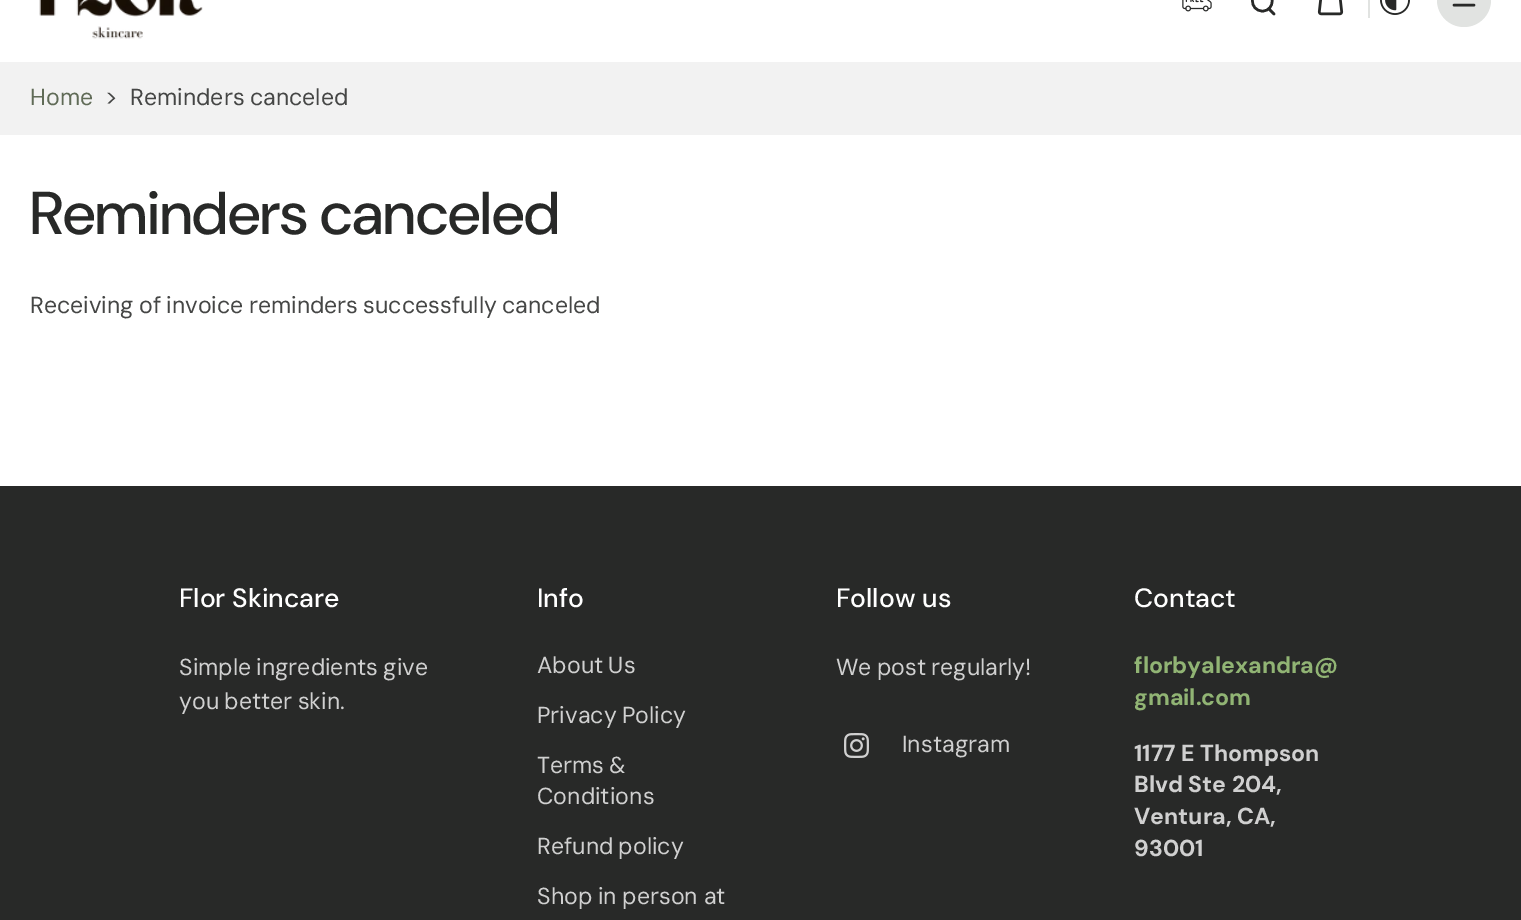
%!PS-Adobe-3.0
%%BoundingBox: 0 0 1521 920
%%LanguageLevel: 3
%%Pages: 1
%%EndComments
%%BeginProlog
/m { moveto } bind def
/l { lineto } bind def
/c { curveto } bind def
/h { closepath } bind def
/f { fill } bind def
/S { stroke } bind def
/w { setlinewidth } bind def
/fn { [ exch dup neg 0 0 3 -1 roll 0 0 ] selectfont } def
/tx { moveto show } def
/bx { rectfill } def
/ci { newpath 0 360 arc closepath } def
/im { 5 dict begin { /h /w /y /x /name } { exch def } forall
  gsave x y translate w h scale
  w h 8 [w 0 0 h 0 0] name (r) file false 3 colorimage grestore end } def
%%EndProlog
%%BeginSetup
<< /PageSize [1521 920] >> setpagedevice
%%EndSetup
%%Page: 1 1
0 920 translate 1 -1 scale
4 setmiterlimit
1 setgray
0 0 1521 920 bx
(image0.raw) 39 0 164 39 im
(image1.raw) 1182 0 30 12 im
0.157 0.161 0.157 setrgbcolor
2.5 w
1262.5 11 m 1275.5 11 1275.5 -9.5 1262.5 -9.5 c 1249 -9.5 1249 11 1262.5 11 c h S
1 setlinecap
1269 9 m 1274 14 l S
(image2.raw) 1317 0 27 16 im
0.882 0.89 0.882 setrgbcolor
1368 0 2 18 bx
(image3.raw) 1380 0 30 15 im
1464 0 27 ci f
0.157 0.161 0.157 setrgbcolor
1454 5 m 1474 5 l S
0.949 setgray
0 62 1521 73 bx
/DMSans-Regular 23.1 fn
0.376 0.42 0.341 setrgbcolor
(Home) 30 105 tx
0.271 0.275 0.271 setrgbcolor
(>) 105 105 tx
130 105 m -1 0 32 (Reminders canceled) widthshow
/DMSans-Medium 60.5 fn
0.157 0.161 0.157 setrgbcolor
(Reminders canceled) 30 234 tx
/DMSans-Regular 23.1 fn
0.271 0.275 0.271 setrgbcolor
30 313 m -1 0 32 (Receiving of invoice reminders successfully canceled) widthshow
0.157 0.161 0.157 setrgbcolor
0 486 1521 434 bx
/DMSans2-Medium 26.5 fn
1 setgray
(Flor Skincare) 179 607 tx
/DMSans-Regular 23.1 fn
0.816 setgray
179 675 m -1 0 32 (Simple ingredients give) widthshow
179 709 m -1 0 32 (you better skin.) widthshow
/DMSans2-Medium 26.5 fn
1 setgray
(Info) 537 607 tx
/DMSans-Regular 23.1 fn
0.816 setgray
537 673 m -1 0 32 (About Us) widthshow
537 723 m -1 0 32 (Privacy Policy) widthshow
537 773 m -1 0 32 (Terms &) widthshow
(Conditions) 537 804 tx
537 854 m -1 0 32 (Refund policy) widthshow
537 904 m -0.5 0 32 (Shop in person at) widthshow
/DMSans2-Medium 26.5 fn
1 setgray
(Follow us) 836 607 tx
/DMSans-Regular 23.1 fn
0.816 setgray
836 675 m -1 0 32 (We post regularly!) widthshow
(image4.raw) 844 733 25 25 im
(Instagram) 902 752 tx
/DMSans2-Medium 26.5 fn
1 setgray
(Contact) 1134 607 tx
/DMSans-Bold 23.1 fn
0.569 0.706 0.455 setrgbcolor
(florbyalexandra@) 1134 673 tx
(gmail.com) 1134 705 tx
0.816 setgray
(1177 E Thompson) 1134 761 tx
(Blvd Ste 204,) 1134 792 tx
(Ventura, CA,) 1134 824 tx
(93001) 1134 856 tx
showpage
%%EOF
